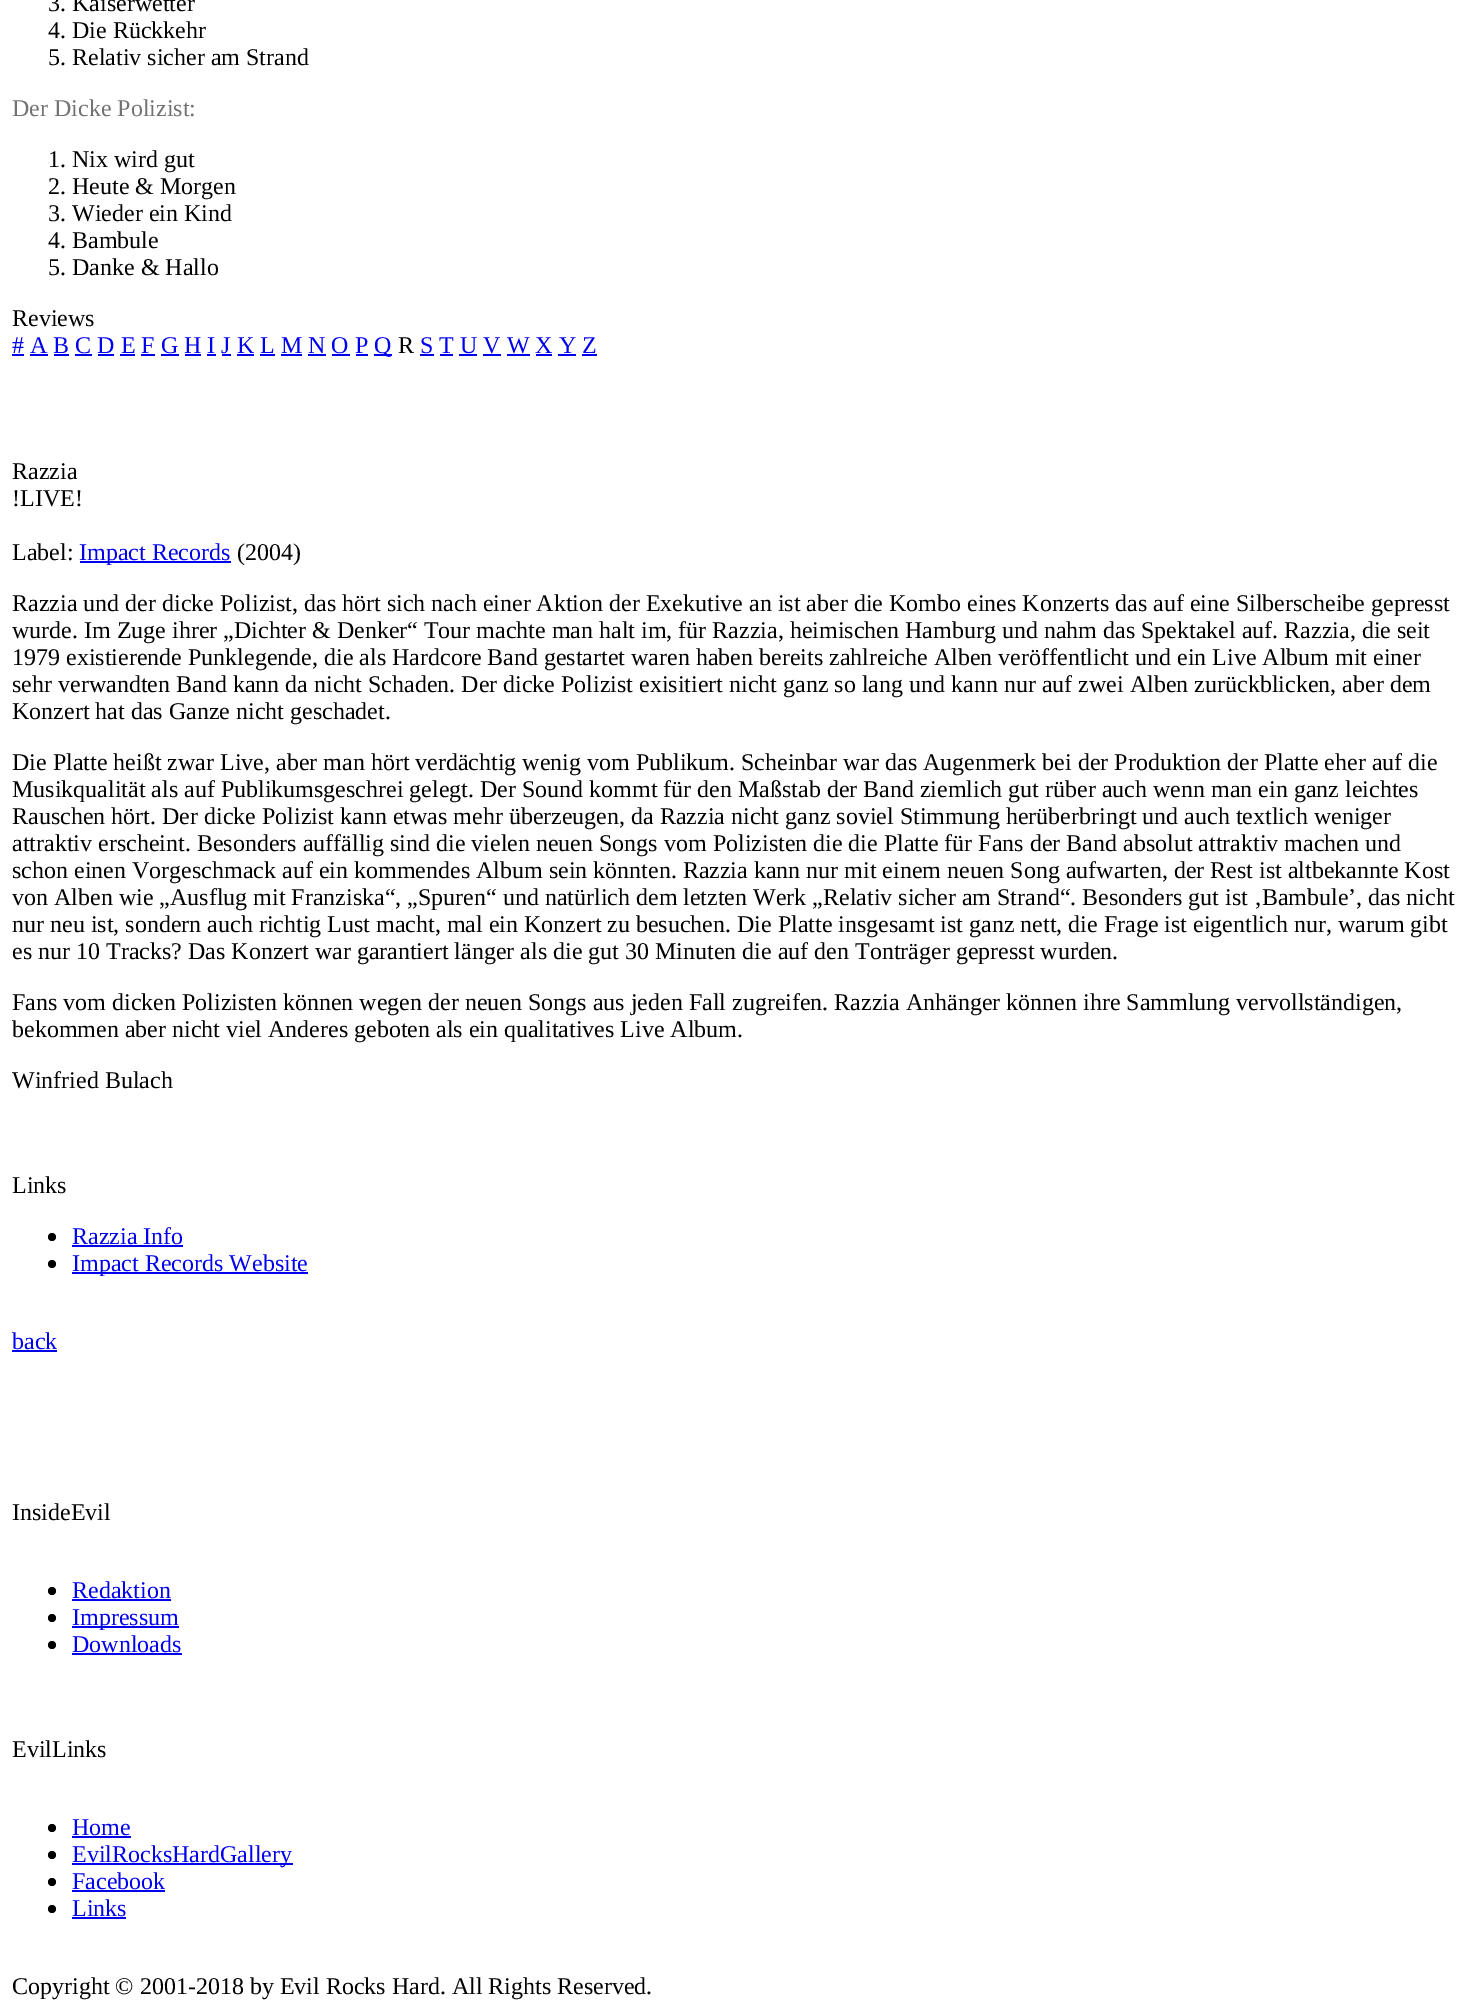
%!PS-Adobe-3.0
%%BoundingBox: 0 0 1474 2011
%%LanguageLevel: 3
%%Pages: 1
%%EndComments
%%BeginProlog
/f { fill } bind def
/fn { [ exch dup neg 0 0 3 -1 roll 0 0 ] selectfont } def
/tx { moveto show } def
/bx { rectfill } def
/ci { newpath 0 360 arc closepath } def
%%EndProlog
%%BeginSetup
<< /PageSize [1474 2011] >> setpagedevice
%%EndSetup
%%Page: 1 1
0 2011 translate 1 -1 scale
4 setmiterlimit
1 setgray
0 0 1474 2011 bx
/LiberationSerif-Regular 24 fn
0 setgray
(3. Kaiserwetter) 48 11 tx
(4. Die Rückkehr) 48 38 tx
(5. Relativ sicher am Strand) 48 65 tx
0.447 setgray
(Der Dicke Polizist:) 12 116 tx
0 setgray
(1. Nix wird gut) 48 167 tx
(2. Heute & Morgen) 48 194 tx
(3. Wieder ein Kind) 48 221 tx
(4. Bambule) 48 248 tx
(5. Danke & Hallo) 48 275 tx
(Reviews) 12 326 tx
0 0 0.933 setrgbcolor
(# A B C D E F G H I J K L M N O P) 12 353 tx
12 354 12 2 bx
374 354 18 2 bx
(Q) 374 353 tx
0 setgray
(R) 398 353 tx
0 0 0.933 setrgbcolor
(S T U V W X Y Z) 420 353 tx
420 354 14 2 bx
30 354 18 2 bx
54 354 15 2 bx
75 354 17 2 bx
98 354 16 2 bx
120 354 15 2 bx
141 354 14 2 bx
161 354 18 2 bx
185 354 16 2 bx
207 354 9 2 bx
222 354 9 2 bx
237 354 17 2 bx
260 354 15 2 bx
281 354 21 2 bx
308 354 18 2 bx
332 354 18 2 bx
356 354 12 2 bx
440 354 13 2 bx
459 354 18 2 bx
483 354 18 2 bx
507 354 23 2 bx
536 354 16 2 bx
558 354 18 2 bx
582 354 15 2 bx
0 setgray
(Razzia) 12 479 tx
(!LIVE!) 12 506 tx
(Label:) 12 560 tx
0 0 0.933 setrgbcolor
80 561 151 2 bx
(Impact Records) 79 560 tx
0 setgray
(\(2004\)) 237 560 tx
(Razzia und der dicke Polizist, das hört sich nach einer Aktion der Exekutive an ist aber die Kombo eines Konzerts das auf eine Silberscheibe gepresst) 12 611 tx
(wurde. Im Zuge ihrer „Dichter & Denker“ Tour machte man halt im, für Razzia, heimischen Hamburg und nahm das Spektakel auf. Razzia, die seit) 12 638 tx
(1979 existierende Punklegende, die als Hardcore Band gestartet waren haben bereits zahlreiche Alben veröffentlicht und ein Live Album mit einer) 12 665 tx
(sehr verwandten Band kann da nicht Schaden. Der dicke Polizist exisitiert nicht ganz so lang und kann nur auf zwei Alben zurückblicken, aber dem) 12 692 tx
(Konzert hat das Ganze nicht geschadet.) 12 719 tx
(Die Platte heißt zwar Live, aber man hört verdächtig wenig vom Publikum. Scheinbar war das Augenmerk bei der Produktion der Platte eher auf die) 12 770 tx
(Musikqualität als auf Publikumsgeschrei gelegt. Der Sound kommt für den Maßstab der Band ziemlich gut rüber auch wenn man ein ganz leichtes) 12 797 tx
(Rauschen hört. Der dicke Polizist kann etwas mehr überzeugen, da Razzia nicht ganz soviel Stimmung herüberbringt und auch textlich weniger) 12 824 tx
(attraktiv erscheint. Besonders auffällig sind die vielen neuen Songs vom Polizisten die die Platte für Fans der Band absolut attraktiv machen und) 12 851 tx
(schon einen Vorgeschmack auf ein kommendes Album sein könnten. Razzia kann nur mit einem neuen Song aufwarten, der Rest ist altbekannte Kost) 12 878 tx
(von Alben wie „Ausflug mit Franziska“, „Spuren“ und natürlich dem letzten Werk „Relativ sicher am Strand“. Besonders gut ist ‚Bambule’, das nicht) 12 905 tx
(nur neu ist, sondern auch richtig Lust macht, mal ein Konzert zu besuchen. Die Platte insgesamt ist ganz nett, die Frage ist eigentlich nur, warum gibt) 12 932 tx
(es nur 10 Tracks? Das Konzert war garantiert länger als die gut 30 Minuten die auf den Tonträger gepresst wurden.) 12 959 tx
(Fans vom dicken Polizisten können wegen der neuen Songs aus jeden Fall zugreifen. Razzia Anhänger können ihre Sammlung vervollständigen,) 12 1010 tx
(bekommen aber nicht viel Anderes geboten als ein qualitatives Live Album.) 12 1037 tx
(Winfried Bulach) 12 1088 tx
(Links) 12 1193 tx
52 1237 4 ci f
0 0 0.933 setrgbcolor
(Razzia Info) 72 1244 tx
72 1245 111 2 bx
0 setgray
52 1264 4 ci f
0 0 0.933 setrgbcolor
72 1272 236 2 bx
(Impact Records Website) 72 1271 tx
(back) 12 1349 tx
12 1350 45 2 bx
0 setgray
(InsideEvil) 12 1520 tx
52 1591 4 ci f
0 0 0.933 setrgbcolor
(Redaktion) 72 1598 tx
72 1599 99 2 bx
0 setgray
52 1618 4 ci f
0 0 0.933 setrgbcolor
72 1626 107 2 bx
(Impressum) 72 1625 tx
0 setgray
52 1645 4 ci f
0 0 0.933 setrgbcolor
(Downloads) 72 1652 tx
72 1653 110 2 bx
0 setgray
(EvilLinks) 12 1757 tx
52 1828 4 ci f
0 0 0.933 setrgbcolor
(Home) 72 1835 tx
72 1836 59 2 bx
0 setgray
52 1855 4 ci f
0 0 0.933 setrgbcolor
72 1863 221 2 bx
(EvilRocksHardGallery) 72 1862 tx
0 setgray
52 1882 4 ci f
0 0 0.933 setrgbcolor
(Facebook) 72 1889 tx
72 1890 93 2 bx
0 setgray
52 1909 4 ci f
0 0 0.933 setrgbcolor
(Links) 72 1916 tx
72 1917 54 2 bx
0 setgray
(Copyright © 2001-2018 by Evil Rocks Hard. All Rights Reserved.) 12 1994 tx
showpage
%%EOF
